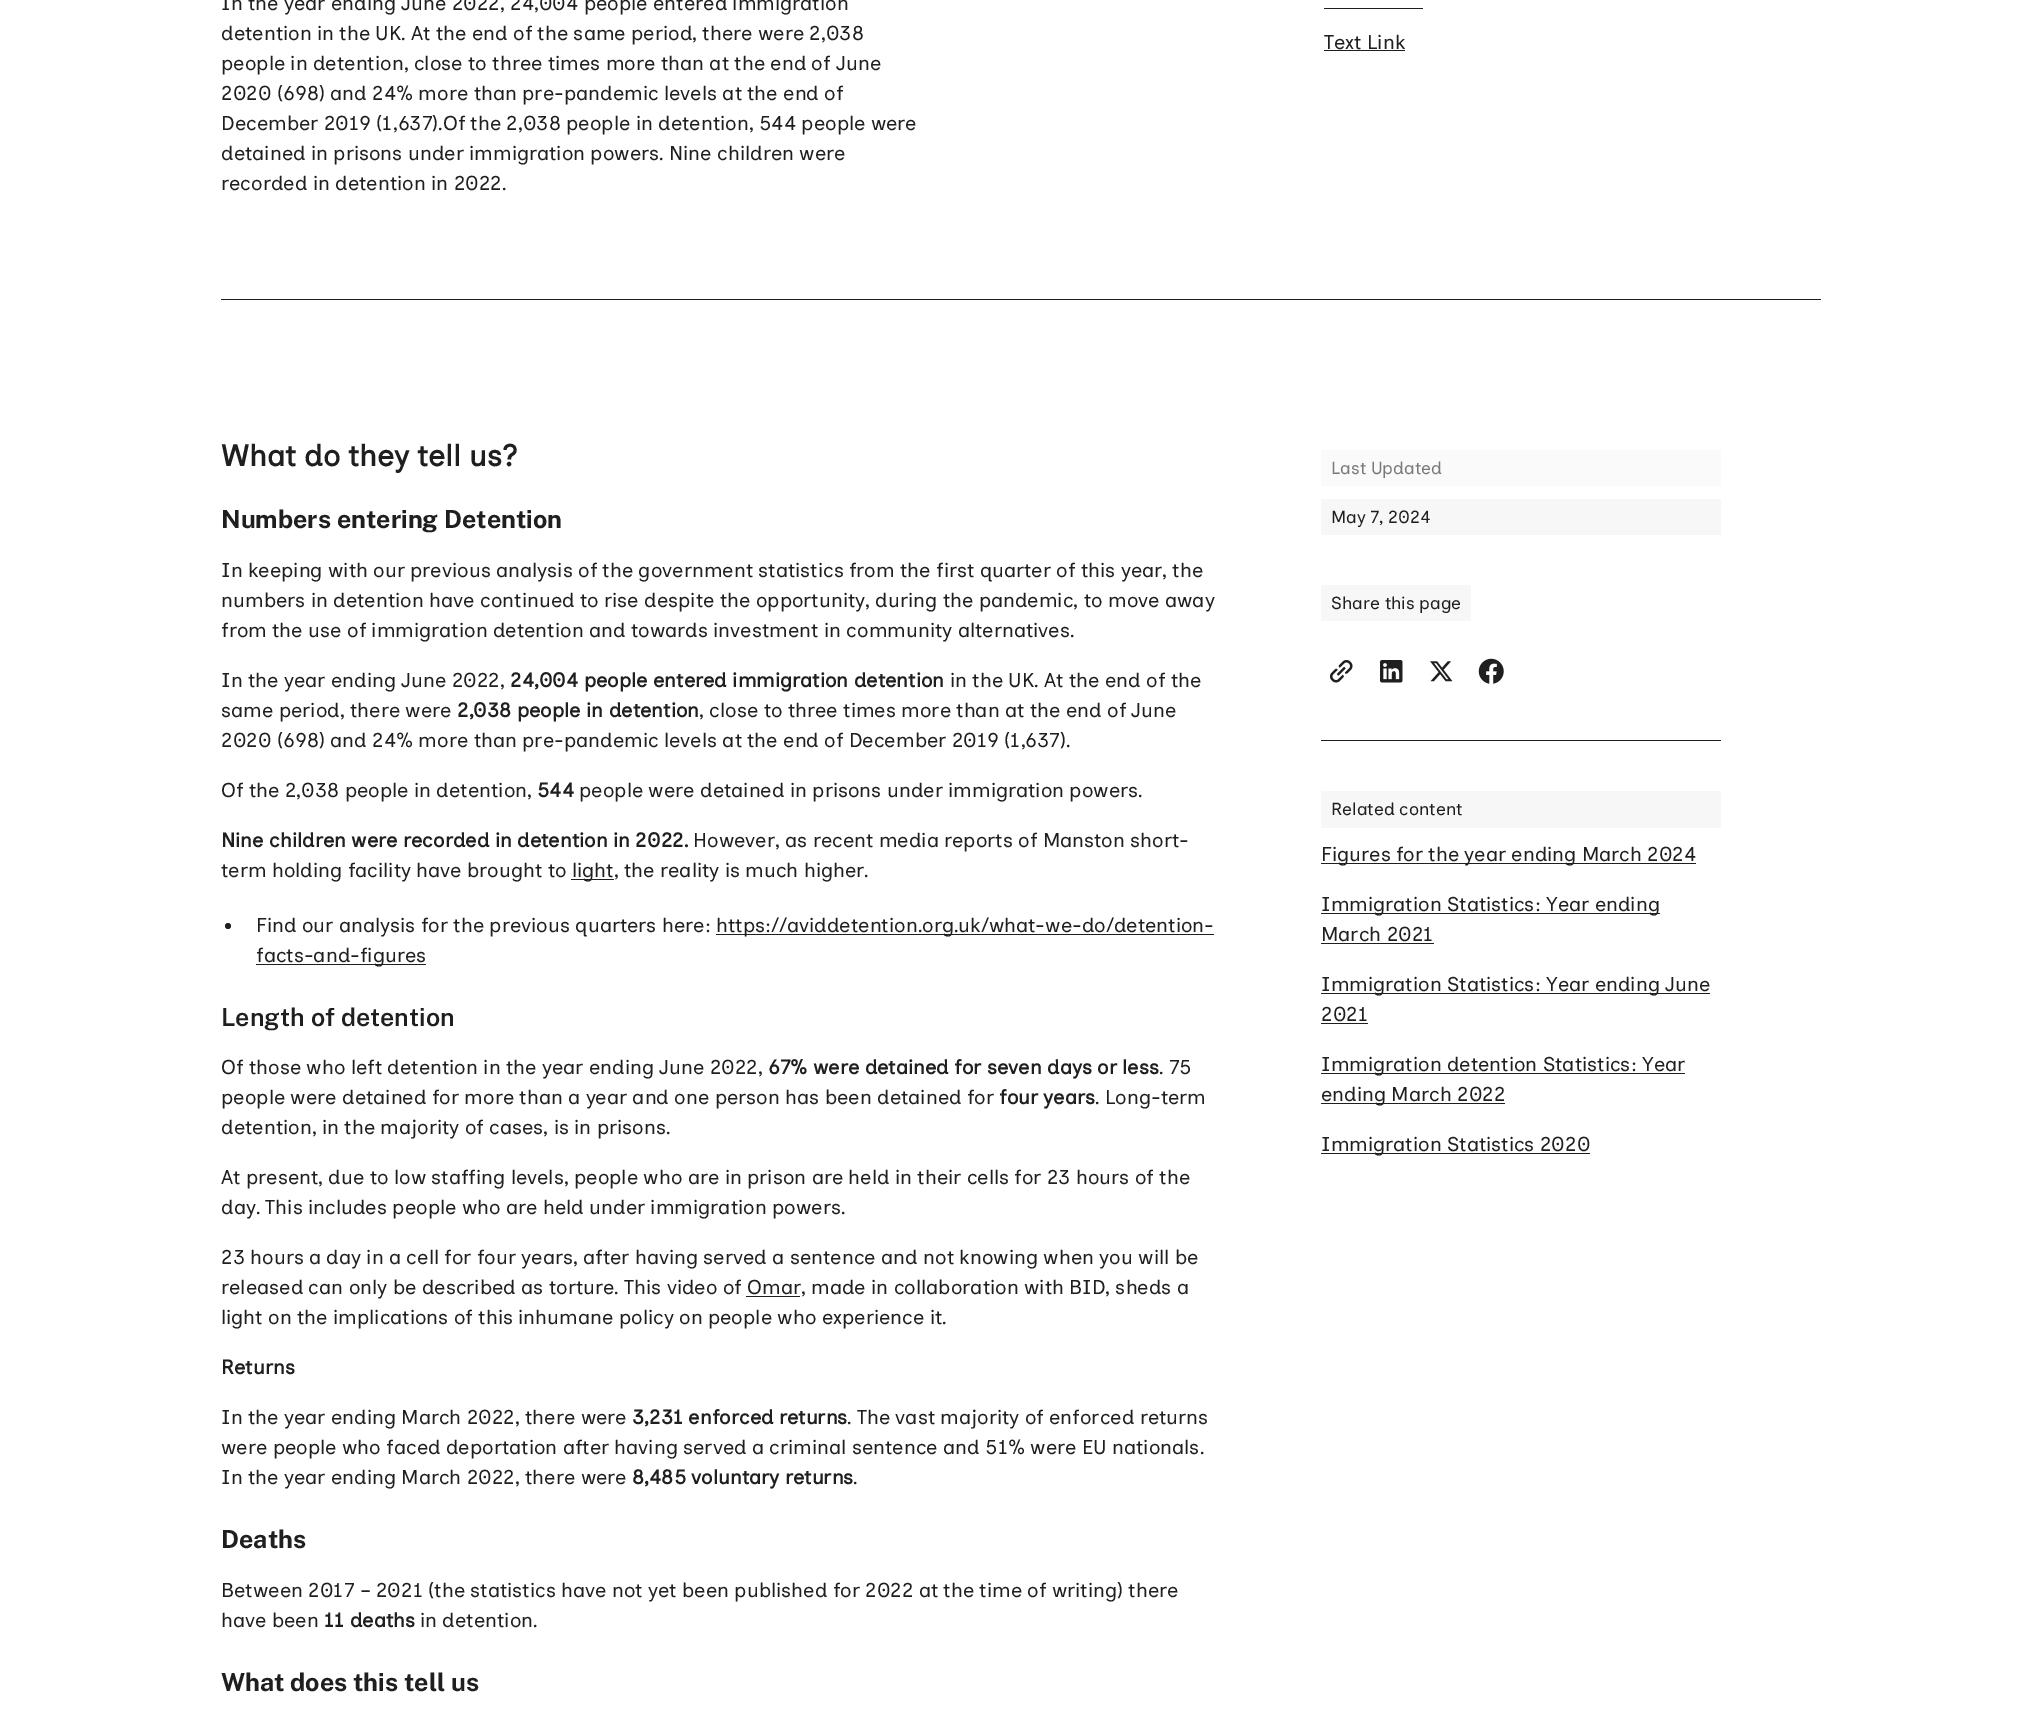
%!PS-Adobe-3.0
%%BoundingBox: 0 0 2041 1714
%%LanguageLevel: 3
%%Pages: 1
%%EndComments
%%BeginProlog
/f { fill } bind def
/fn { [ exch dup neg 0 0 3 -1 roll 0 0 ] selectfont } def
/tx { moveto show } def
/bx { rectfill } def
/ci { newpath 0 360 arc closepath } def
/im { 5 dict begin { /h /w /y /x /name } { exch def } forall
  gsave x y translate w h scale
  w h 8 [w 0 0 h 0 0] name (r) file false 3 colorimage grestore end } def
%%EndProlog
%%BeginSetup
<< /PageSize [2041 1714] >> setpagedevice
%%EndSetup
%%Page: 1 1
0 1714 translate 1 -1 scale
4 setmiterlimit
1 setgray
0 0 2041 1714 bx
0.122 setgray
221 299 1600 1 bx
/InclusiveSans-Regular 20 fn
(In the year ending June 2022, 24,004 people entered immigration) 221 10 tx
(detention in the UK. At the end of the same period, there were 2,038) 221 40 tx
(people in detention, close to three times more than at the end of June) 221 70 tx
(2020 \(698\) and 24% more than pre-pandemic levels at the end of) 221 100 tx
(December 2019 \(1,637\).Of the 2,038 people in detention, 544 people were) 221 130 tx
(detained in prisons under immigration powers. Nine children were) 221 160 tx
(recorded in detention in 2022.) 221 190 tx
1324 8 99 1 bx
(Text Link) 1324 49 tx
1324 50 81 1 bx
/InclusiveSans-Bold 30 fn
(What do they tell us?) 221 466 tx
/PublicSans-Bold 25 fn
(Numbers entering Detention) 221 528 tx
/InclusiveSans-Regular 20 fn
(In keeping with our previous analysis of the government statistics from the first quarter of this year, the) 221 577 tx
(numbers in detention have continued to rise despite the opportunity, during the pandemic, to move away) 221 607 tx
(from the use of immigration detention and towards investment in community alternatives.) 221 637 tx
(In the year ending June 2022,) 221 687 tx
/InclusiveSans-Bold 20 fn
(24,004 people entered immigration detention) 510 687 tx
/InclusiveSans-Regular 20 fn
(in the UK. At the end of the) 950 687 tx
(same period, there were) 221 717 tx
/InclusiveSans-Bold 20 fn
(2,038 people in detention) 457 717 tx
/InclusiveSans-Regular 20 fn
(, close to three times more than at the end of June) 699 717 tx
(2020 \(698\) and 24% more than pre-pandemic levels at the end of December 2019 \(1,637\).) 221 747 tx
(Of the 2,038 people in detention,) 221 797 tx
/InclusiveSans-Bold 20 fn
(544) 537 797 tx
/InclusiveSans-Regular 20 fn
(people were detained in prisons under immigration powers.) 579 797 tx
/InclusiveSans-Bold 20 fn
(Nine children were recorded in detention in 2022.) 221 847 tx
/InclusiveSans-Regular 20 fn
(However, as recent media reports of Manston short-) 693 847 tx
(term holding facility have brought to) 221 877 tx
571 879 43 1 bx
(light, the reality is much higher.) 572 877 tx
228 926 3 ci f
(Find our analysis for the previous quarters here:) 256 932 tx
716 934 498 1 bx
(https://aviddetention.org.uk/what-we-do/detention-) 716 932 tx
256 964 170 1 bx
(facts-and-figures) 256 962 tx
/PublicSans-SemiBold 25 fn
(Length of detention) 221 1026 tx
/InclusiveSans-Regular 20 fn
(Of those who left detention in the year ending June 2022,) 221 1074 tx
/InclusiveSans-Bold 20 fn
(67% were detained for seven days or less) 768 1074 tx
/InclusiveSans-Regular 20 fn
(. 75) 1159 1074 tx
(people were detained for more than a year and one person has been detained for) 221 1104 tx
/InclusiveSans-Bold 20 fn
(four years) 999 1104 tx
/InclusiveSans-Regular 20 fn
(. Long-term) 1095 1104 tx
(detention, in the majority of cases, is in prisons.) 221 1134 tx
(At present, due to low staffing levels, people who are in prison are held in their cells for 23 hours of the) 221 1184 tx
(day. This includes people who are held under immigration powers.) 221 1214 tx
(23 hours a day in a cell for four years, after having served a sentence and not knowing when you will be) 221 1264 tx
(released can only be described as torture. This video of Omar, made in collaboration with BID, sheds a) 221 1294 tx
746 1296 54 1 bx
(light on the implications of this inhumane policy on people who experience it.) 221 1324 tx
/InclusiveSans-Bold 20 fn
(Returns) 221 1374 tx
/InclusiveSans-Regular 20 fn
(In the year ending March 2022, there were) 221 1424 tx
/InclusiveSans-Bold 20 fn
(3,231 enforced returns) 632 1424 tx
/InclusiveSans-Regular 20 fn
(. The vast majority of enforced returns) 847 1424 tx
(were people who faced deportation after having served a criminal sentence and 51% were EU nationals.) 221 1454 tx
(In the year ending March 2022, there were) 221 1484 tx
/InclusiveSans-Bold 20 fn
(8,485 voluntary returns) 632 1484 tx
/InclusiveSans-Regular 20 fn
(.) 853 1484 tx
/PublicSans-Bold 25 fn
(Deaths) 221 1548 tx
/InclusiveSans-Regular 20 fn
(Between 2017 – 2021 \(the statistics have not yet been published for 2022 at the time of writing\) there) 221 1597 tx
(have been) 221 1627 tx
/InclusiveSans-Bold 20 fn
(11 deaths) 324 1627 tx
/InclusiveSans-Regular 20 fn
(in detention.) 420 1627 tx
/PublicSans-Bold 25 fn
(What does this tell us) 221 1691 tx
0.98 setgray
1321 450 400 36 bx
/InclusiveSans-Regular 17.5 fn
0.475 setgray
(Last Updated) 1331 474 tx
0.969 setgray
1321 499 400 36 bx
0.122 setgray
(May 7, 2024) 1331 523 tx
0.969 setgray
1321 585 150 36 bx
0.122 setgray
(Share this page) 1331 609 tx
(image0.raw) 1330 660 23 23 im
(image1.raw) 1380 660 23 23 im
(image2.raw) 1430 661 23 21 im
(image3.raw) 1478 658 26 26 im
1321 740 400 1 bx
0.969 setgray
1321 791 400 37 bx
0.122 setgray
(Related content) 1331 815 tx
1321 863 375 1 bx
/InclusiveSans-Regular 20 fn
(Figures for the year ending March 2024) 1321 861 tx
1321 913 339 1 bx
(Immigration Statistics: Year ending) 1321 911 tx
(March 2021) 1321 941 tx
1321 943 113 1 bx
1321 993 389 1 bx
(Immigration Statistics: Year ending June) 1321 991 tx
(2021) 1321 1021 tx
1321 1023 47 1 bx
1321 1073 364 1 bx
(Immigration detention Statistics: Year) 1321 1071 tx
1321 1103 184 1 bx
(ending March 2022) 1321 1101 tx
1321 1153 269 1 bx
(Immigration Statistics 2020) 1321 1151 tx
showpage
%%EOF
